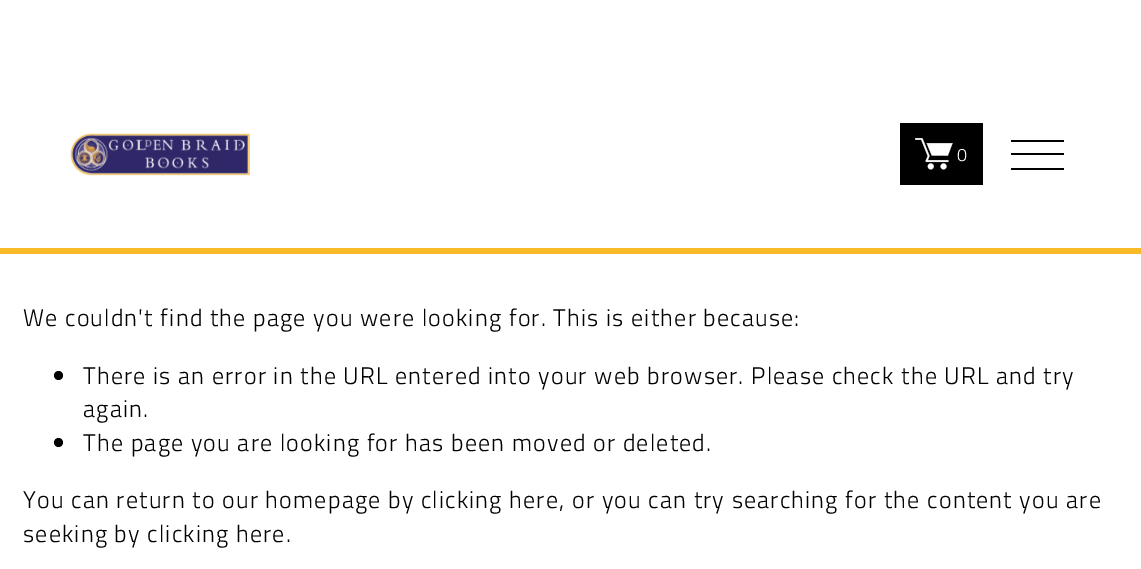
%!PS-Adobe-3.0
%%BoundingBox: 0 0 1141 569
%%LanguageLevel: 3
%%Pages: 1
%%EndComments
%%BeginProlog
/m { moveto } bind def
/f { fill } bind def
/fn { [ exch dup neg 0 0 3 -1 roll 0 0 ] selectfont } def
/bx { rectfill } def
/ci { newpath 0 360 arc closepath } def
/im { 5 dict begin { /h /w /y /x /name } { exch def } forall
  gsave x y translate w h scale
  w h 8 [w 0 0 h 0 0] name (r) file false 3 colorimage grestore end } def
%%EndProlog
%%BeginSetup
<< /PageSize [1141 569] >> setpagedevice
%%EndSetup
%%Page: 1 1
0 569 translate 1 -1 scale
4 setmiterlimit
1 setgray
0 0 1141 569 bx
(image0.raw) 70 133 180 43 im
0 setgray
900 123 83 62 bx
(image1.raw) 915 138 38 32 im
/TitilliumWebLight-Light 18 fn
1 setgray
957 161 m 1 0 (0) ashow
0 setgray
1011 140 53 2 bx
1011 153 53 2 bx
1011 168 53 2 bx
0.976 0.729 0.153 setrgbcolor
0 248 1141 6 bx
/TitilliumWebLight-Light 24 fn
0 setgray
23 326 m 1.2 0 (We couldn't find the page you were looking for. This is either because:) ashow
58.5 375.5 4.5 ci f
83 384 m 1.2 0 (There is an error in the URL entered into your web browser. Please check the URL and try) ashow
83 417 m 1.2 0 (again.) ashow
58.5 442.5 4.5 ci f
83 451 m 1.2 0 (The page you are looking for has been moved or deleted.) ashow
23 508 m 1.2 0 (You can return to our homepage by clicking here, or you can try searching for the content you are) ashow
23 542 m 1.2 0 (seeking by clicking here.) ashow
showpage
%%EOF
